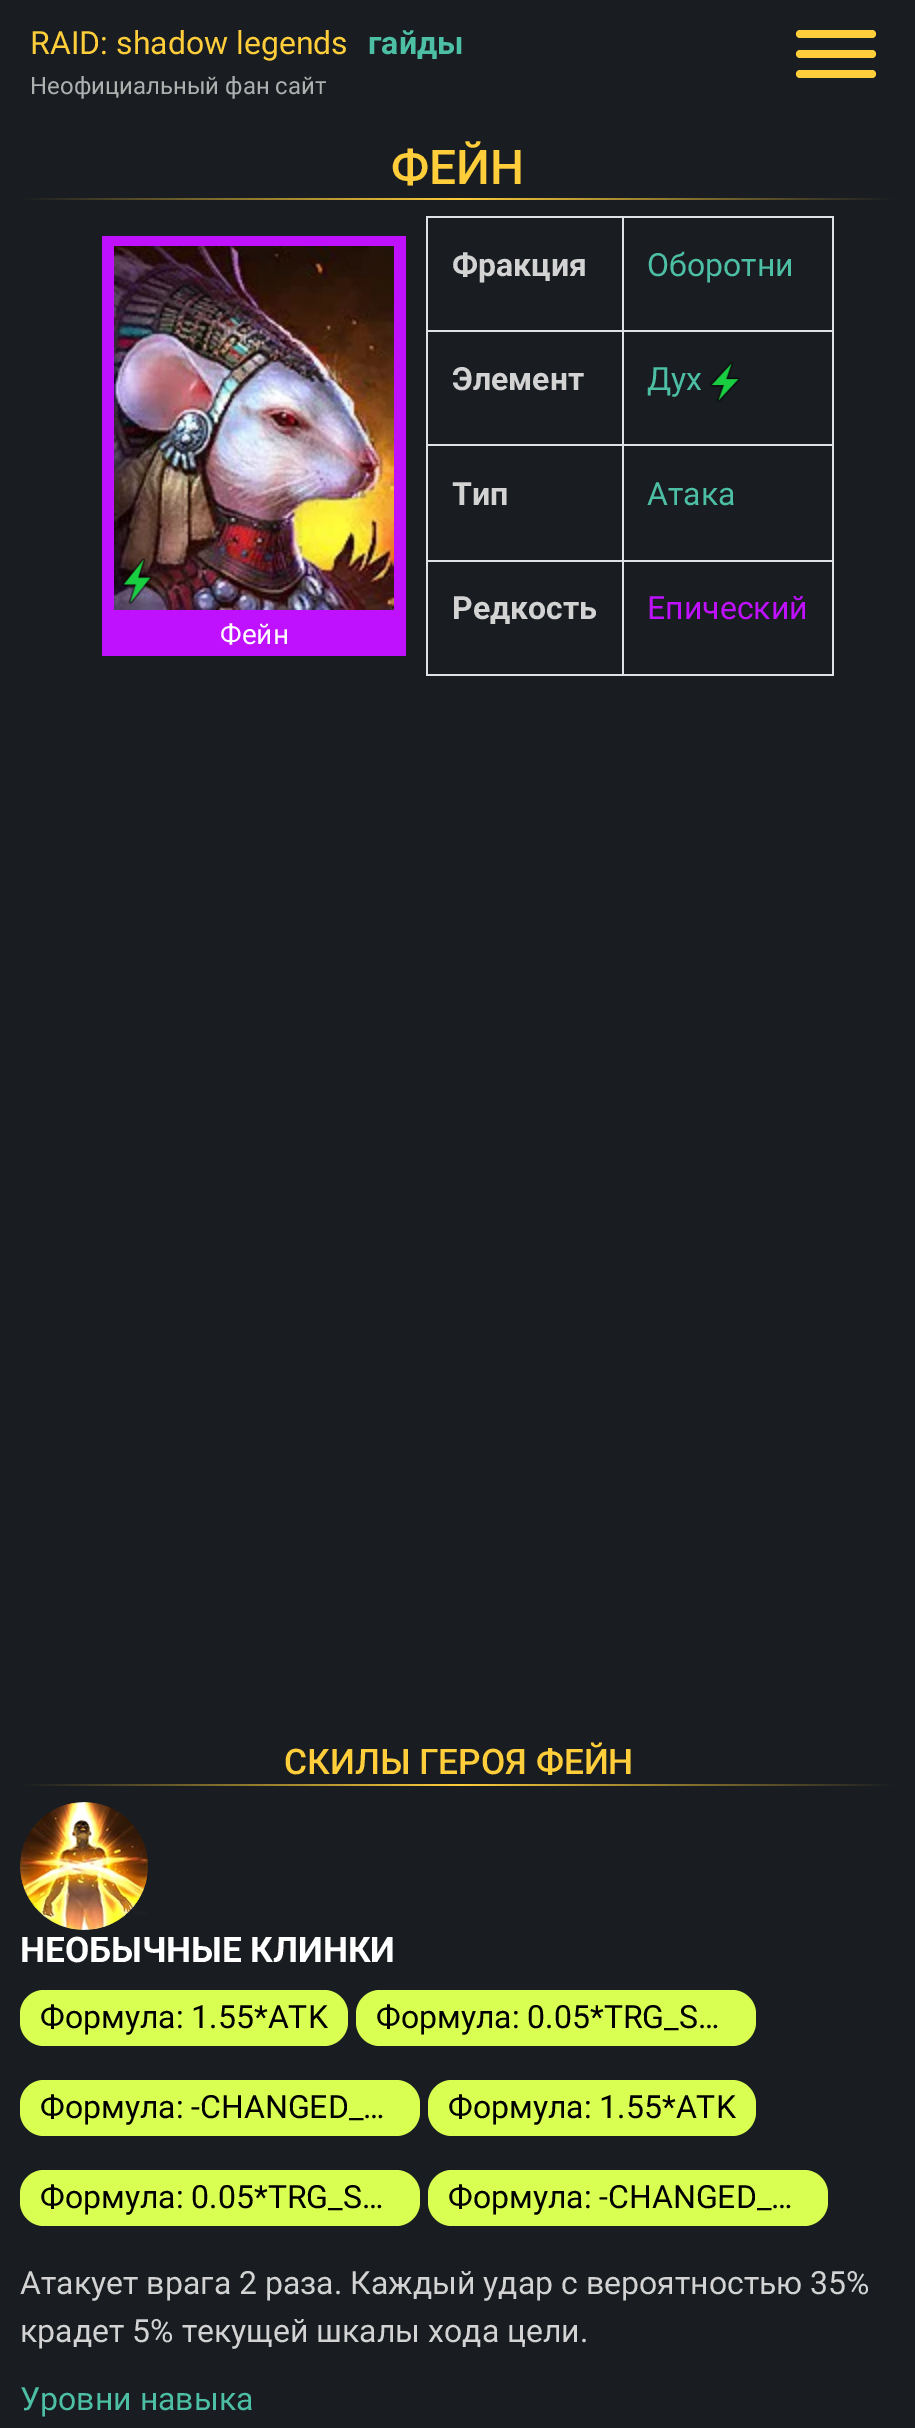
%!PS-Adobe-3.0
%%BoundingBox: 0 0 915 2428
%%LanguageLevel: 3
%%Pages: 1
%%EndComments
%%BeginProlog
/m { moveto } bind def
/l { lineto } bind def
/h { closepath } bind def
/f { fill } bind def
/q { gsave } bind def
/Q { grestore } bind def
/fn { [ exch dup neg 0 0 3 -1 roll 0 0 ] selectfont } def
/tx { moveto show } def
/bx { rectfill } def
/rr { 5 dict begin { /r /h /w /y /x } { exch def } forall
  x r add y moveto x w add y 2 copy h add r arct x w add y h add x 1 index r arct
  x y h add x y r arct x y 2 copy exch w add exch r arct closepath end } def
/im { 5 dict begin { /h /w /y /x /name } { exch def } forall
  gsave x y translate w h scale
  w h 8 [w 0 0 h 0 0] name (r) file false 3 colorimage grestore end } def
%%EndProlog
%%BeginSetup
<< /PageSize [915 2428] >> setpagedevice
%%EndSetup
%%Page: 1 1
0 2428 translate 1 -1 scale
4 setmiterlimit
0.098 0.114 0.129 setrgbcolor
0 0 915 2428 bx
/Roboto-Regular 32 fn
1 0.808 0.227 setrgbcolor
(RAID: shadow legends) 30 54 tx
/Roboto-Bold 32 fn
0.302 0.749 0.647 setrgbcolor
(гайды) 368 54 tx
/Roboto-Regular 24 fn
0.682 0.686 0.686 setrgbcolor
(Неофициальный фан сайт) 30 94 tx
1 0.808 0.227 setrgbcolor
796 50 80 8 4 rr f
796 30 80 8 4 rr f
796 70 80 8 4 rr f
/Roboto-Medium 48 fn
(ФЕЙН) 391 184 tx
q 20 198 m 896 198 l 896 200 l 20 200 l h clip newpath
<< /ShadingType 2 /ColorSpace /DeviceRGB /Coords [20 199 896 199] /Extend [true true] /Function << /FunctionType 3 /Domain [0 1] /Functions [<< /FunctionType 2 /Domain [0 1] /C0 [0.098 0.114 0.129] /C1 [1 0.808 0.227] /N 1 >> << /FunctionType 2 /Domain [0 1] /C0 [1 0.808 0.227] /C1 [0.098 0.114 0.129] /N 1 >>] /Bounds [0.5] /Encode [0 1 0 1] >> >> shfill Q
0.871 0.886 0.902 setrgbcolor
426 216 408 2 bx
832 216 2 460 bx
426 674 408 2 bx
426 216 2 460 bx
/Roboto-Bold 32 fn
0.827 setgray
(Фракция) 452 276 tx
0.871 0.886 0.902 setrgbcolor
622 330 212 2 bx
622 444 212 2 bx
622 560 212 2 bx
622 560 2 116 bx
426 560 198 2 bx
622 444 2 118 bx
426 444 198 2 bx
622 330 2 116 bx
426 330 198 2 bx
622 216 2 116 bx
/Roboto-Regular 32 fn
0.302 0.749 0.647 setrgbcolor
(Оборотни) 647 276 tx
/Roboto-Bold 32 fn
0.827 setgray
(Элемент) 452 390 tx
/Roboto-Regular 32 fn
0.302 0.749 0.647 setrgbcolor
(Дух) 647 390 tx
(image0.raw) 710 362 30 40 im
/Roboto-Bold 32 fn
0.827 setgray
(Тип) 452 505 tx
/Roboto-Regular 32 fn
0.302 0.749 0.647 setrgbcolor
(Атака) 647 505 tx
/Roboto-Bold 32 fn
0.827 setgray
(Редкость) 452 619 tx
/Roboto-Regular 32 fn
0.753 0.067 1 setrgbcolor
(Епический) 647 619 tx
102 236 304 420 bx
(image1.raw) 114 246 280 364 im
(image2.raw) 122 558 30 46 im
/Roboto-Regular 28 fn
1 setgray
(Фейн) 220 644 tx
/Roboto-Medium 35.25 fn
1 0.808 0.227 setrgbcolor
(СКИЛЫ ГЕРОЯ ФЕЙН) 284 1774 tx
q 20 1784 m 896 1784 l 896 1786 l 20 1786 l h clip newpath
<< /ShadingType 2 /ColorSpace /DeviceRGB /Coords [20 1785 896 1785] /Extend [true true] /Function << /FunctionType 3 /Domain [0 1] /Functions [<< /FunctionType 2 /Domain [0 1] /C0 [0.098 0.114 0.129] /C1 [1 0.808 0.227] /N 1 >> << /FunctionType 2 /Domain [0 1] /C0 [1 0.808 0.227] /C1 [0.098 0.114 0.129] /N 1 >>] /Bounds [0.5] /Encode [0 1 0 1] >> >> shfill Q
(image3.raw) 20 1802 128 128 im
/Roboto-Bold 35.25 fn
1 setgray
(НЕОБЫЧНЫЕ КЛИНКИ) 20 1962 tx
0.847 1 0.318 setrgbcolor
20 1990 328 56 24 rr f
/Roboto-Regular 32 fn
0 setgray
(Формула: 1.55*ATK) 40 2028 tx
0.847 1 0.318 setrgbcolor
356 1990 400 56 24 rr f
0 setgray
(Формула: 0.05*TRG_S…) 376 2028 tx
0.847 1 0.318 setrgbcolor
20 2080 400 56 24 rr f
0 setgray
(Формула: -CHANGED_…) 40 2118 tx
0.847 1 0.318 setrgbcolor
428 2080 328 56 24 rr f
0 setgray
(Формула: 1.55*ATK) 448 2118 tx
0.847 1 0.318 setrgbcolor
20 2170 400 56 24 rr f
0 setgray
(Формула: 0.05*TRG_S…) 40 2208 tx
0.847 1 0.318 setrgbcolor
428 2170 400 56 24 rr f
0 setgray
(Формула: -CHANGED_…) 448 2208 tx
0.827 setgray
(Атакует врага 2 раза. Каждый удар с вероятностью 35%) 20 2294 tx
(крадет 5% текущей шкалы хода цели.) 20 2342 tx
0.302 0.749 0.647 setrgbcolor
(Уровни навыка) 20 2410 tx
showpage
%%EOF
